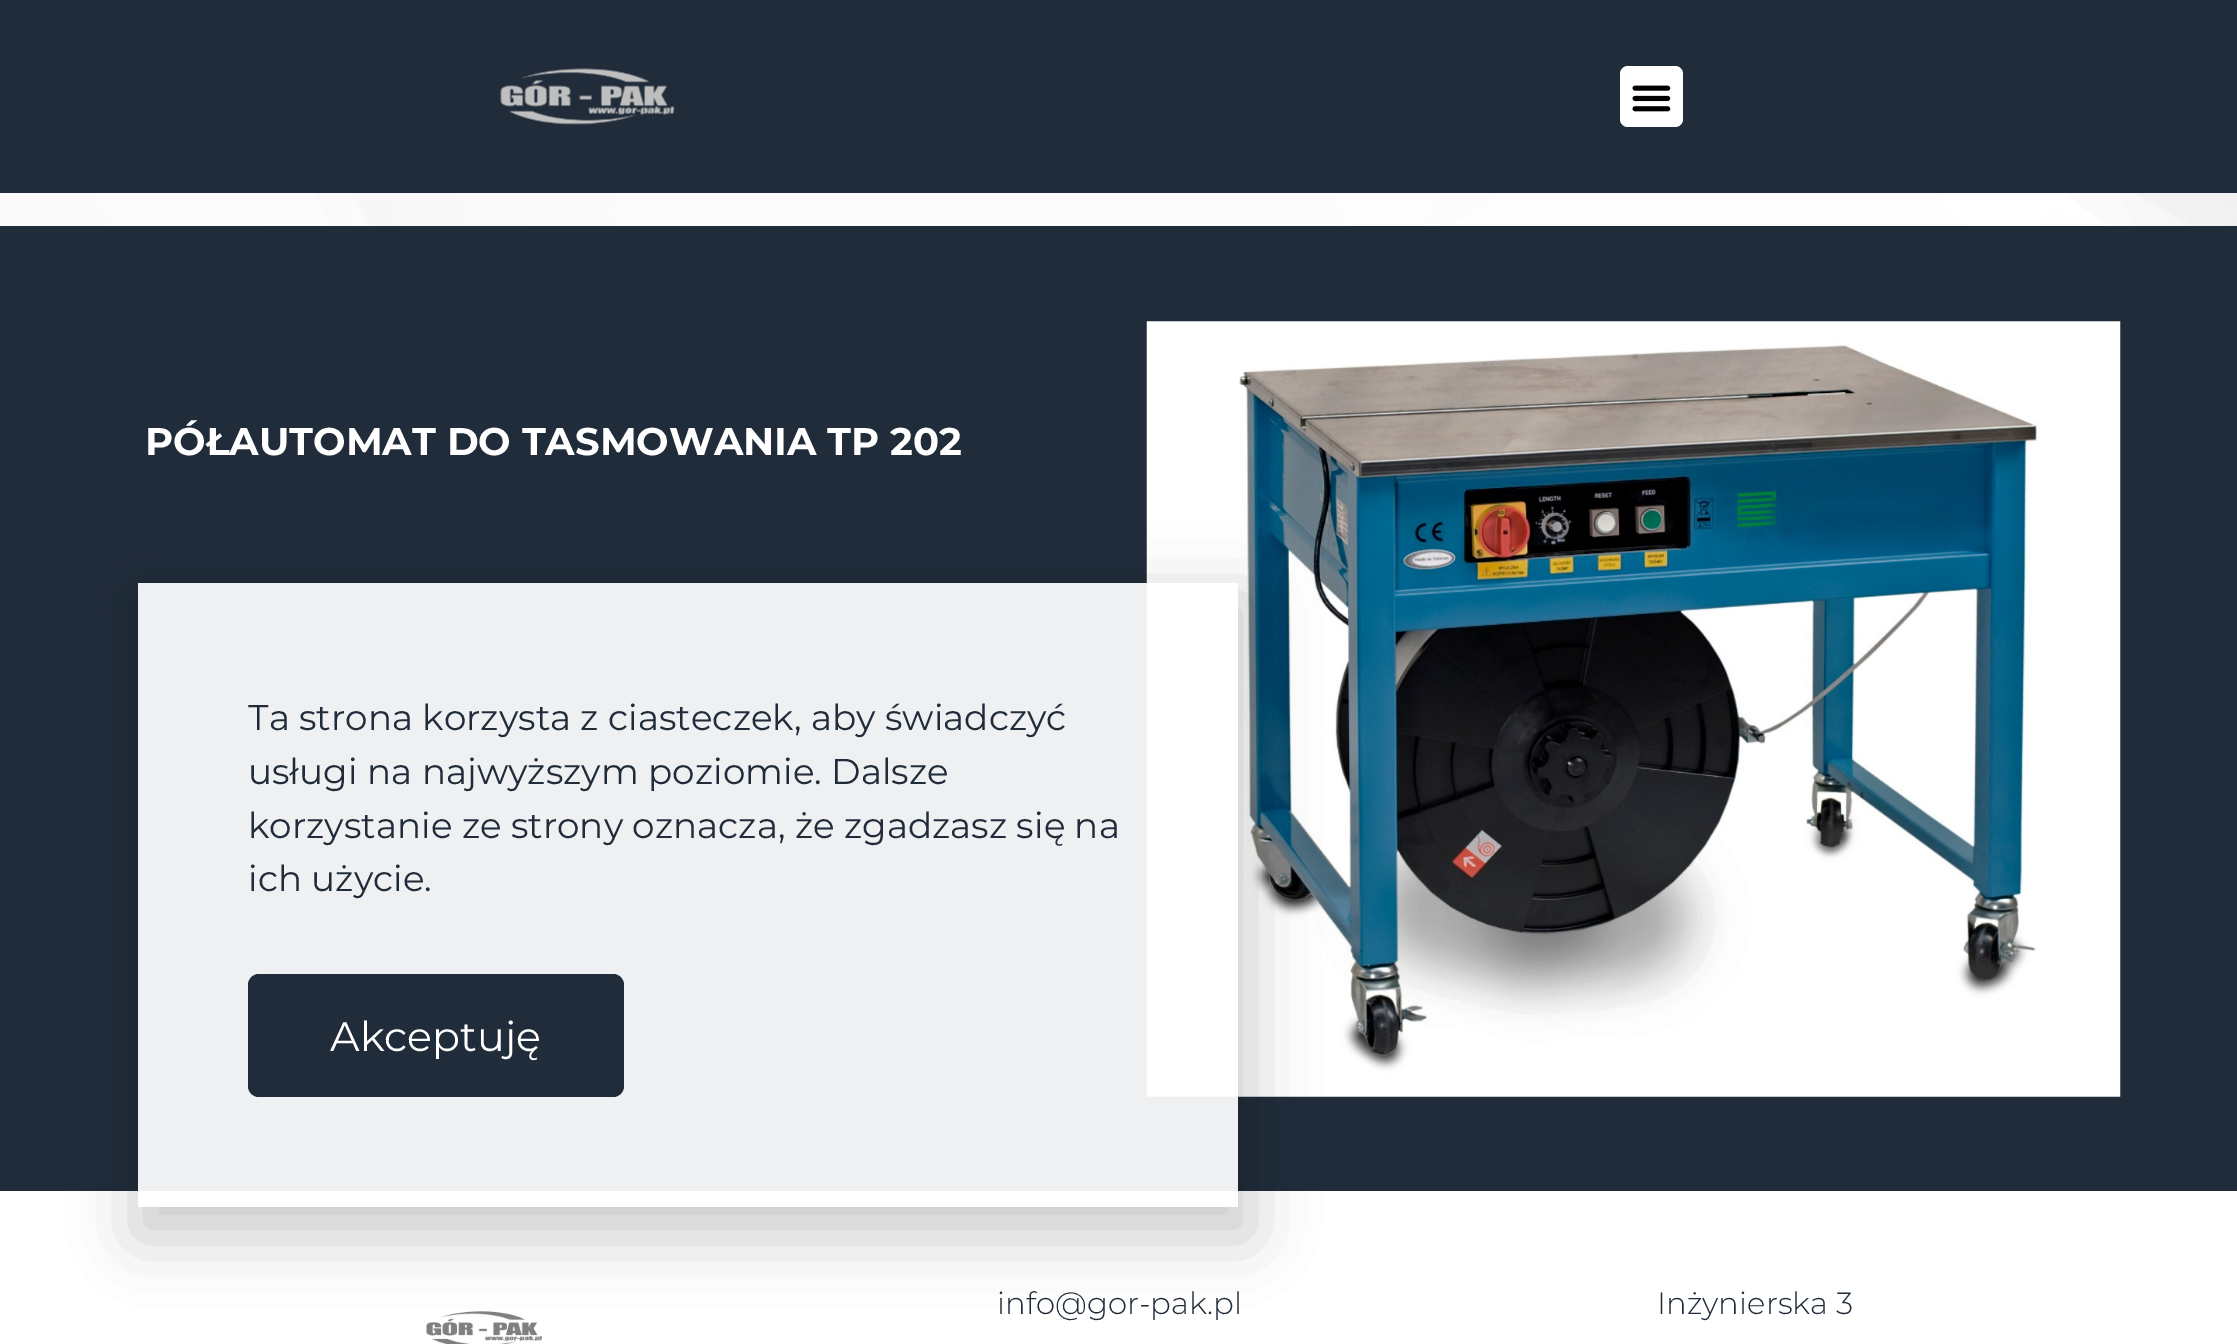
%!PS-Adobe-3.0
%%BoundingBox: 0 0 2237 1344
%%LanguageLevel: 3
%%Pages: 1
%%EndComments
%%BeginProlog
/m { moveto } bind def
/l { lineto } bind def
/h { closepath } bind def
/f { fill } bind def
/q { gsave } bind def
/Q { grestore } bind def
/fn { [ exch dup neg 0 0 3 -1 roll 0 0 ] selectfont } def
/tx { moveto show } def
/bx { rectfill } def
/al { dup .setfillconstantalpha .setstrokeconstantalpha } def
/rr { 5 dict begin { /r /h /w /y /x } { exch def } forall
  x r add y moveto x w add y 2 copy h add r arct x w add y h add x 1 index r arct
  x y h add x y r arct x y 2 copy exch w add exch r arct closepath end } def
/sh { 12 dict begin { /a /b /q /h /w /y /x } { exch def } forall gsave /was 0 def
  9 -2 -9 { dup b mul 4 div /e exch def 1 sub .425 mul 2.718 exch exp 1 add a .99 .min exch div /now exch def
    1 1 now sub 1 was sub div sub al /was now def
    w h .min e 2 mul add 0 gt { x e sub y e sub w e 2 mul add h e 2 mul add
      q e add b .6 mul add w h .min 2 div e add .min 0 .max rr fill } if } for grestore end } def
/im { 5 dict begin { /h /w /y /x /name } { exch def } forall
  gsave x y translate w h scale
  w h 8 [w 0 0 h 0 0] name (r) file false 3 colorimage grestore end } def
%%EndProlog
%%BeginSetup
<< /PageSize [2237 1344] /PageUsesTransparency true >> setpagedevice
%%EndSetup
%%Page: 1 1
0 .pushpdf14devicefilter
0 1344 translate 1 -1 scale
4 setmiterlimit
1 setgray
0 0 2237 1344 bx
(image0.raw) 0 193 2237 33 im
0.129 0.173 0.227 setrgbcolor
0 0 2237 193 bx
(image1.raw) 500 68 175 57 im
1 setgray
1620 66 63 61 8 rr f
(image2.raw) 1632 85 39 27 im
0.129 0.173 0.227 setrgbcolor
0 226 2237 965 bx
/Montserrat-Bold 38.5 fn
1 setgray
(PÓŁAUTOMAT DO TASMOWANIA TP 202) 145 455 tx
(image3.raw) 1146 321 975 776 im
(image4.raw) 426 1311 116 33 im
q
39 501 m 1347 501 l 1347 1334 l 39 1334 l h 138 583 m 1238 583 l 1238 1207 l 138 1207 l h eoclip newpath
0 setgray
135 597 1116 641 0 31.5 0.2 sh
Q
0.93 al
138 583 1100 624 bx
/Montserrat-Regular 35.75 fn
1 al
0.129 0.173 0.227 setrgbcolor
(Ta strona korzysta z ciasteczek, aby świadczyć) 248 730 tx
(usługi na najwyższym poziomie. Dalsze) 248 784 tx
(korzystanie ze strony oznacza, że zgadzasz się na) 248 838 tx
(ich użycie.) 248 891 tx
248 974 376 123 11 rr f
/Montserrat-Regular 41.25 fn
1 setgray
(Akceptuję) 330 1051 tx
/Montserrat-Light 30.75 fn
0.129 0.173 0.227 setrgbcolor
(info@gor-pak.pl) 997 1314 tx
(Inżynierska 3) 1657 1314 tx
.poppdf14devicefilter showpage
%%EOF
